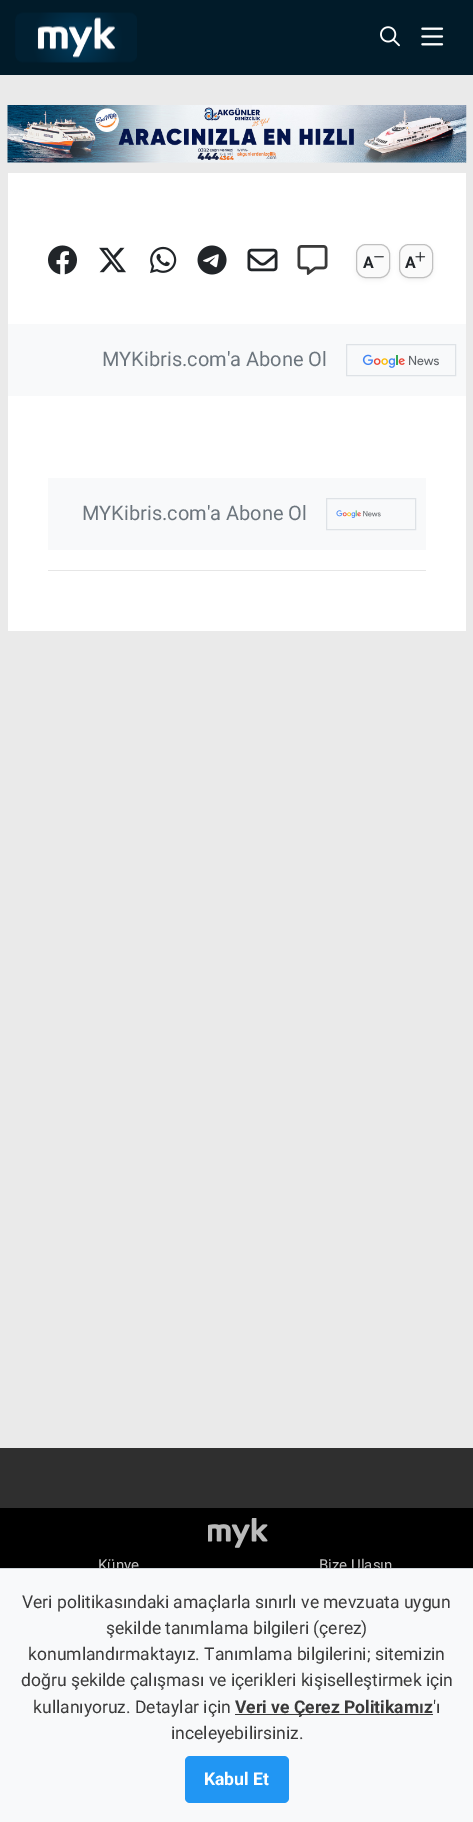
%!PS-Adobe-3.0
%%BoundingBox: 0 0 473 1822
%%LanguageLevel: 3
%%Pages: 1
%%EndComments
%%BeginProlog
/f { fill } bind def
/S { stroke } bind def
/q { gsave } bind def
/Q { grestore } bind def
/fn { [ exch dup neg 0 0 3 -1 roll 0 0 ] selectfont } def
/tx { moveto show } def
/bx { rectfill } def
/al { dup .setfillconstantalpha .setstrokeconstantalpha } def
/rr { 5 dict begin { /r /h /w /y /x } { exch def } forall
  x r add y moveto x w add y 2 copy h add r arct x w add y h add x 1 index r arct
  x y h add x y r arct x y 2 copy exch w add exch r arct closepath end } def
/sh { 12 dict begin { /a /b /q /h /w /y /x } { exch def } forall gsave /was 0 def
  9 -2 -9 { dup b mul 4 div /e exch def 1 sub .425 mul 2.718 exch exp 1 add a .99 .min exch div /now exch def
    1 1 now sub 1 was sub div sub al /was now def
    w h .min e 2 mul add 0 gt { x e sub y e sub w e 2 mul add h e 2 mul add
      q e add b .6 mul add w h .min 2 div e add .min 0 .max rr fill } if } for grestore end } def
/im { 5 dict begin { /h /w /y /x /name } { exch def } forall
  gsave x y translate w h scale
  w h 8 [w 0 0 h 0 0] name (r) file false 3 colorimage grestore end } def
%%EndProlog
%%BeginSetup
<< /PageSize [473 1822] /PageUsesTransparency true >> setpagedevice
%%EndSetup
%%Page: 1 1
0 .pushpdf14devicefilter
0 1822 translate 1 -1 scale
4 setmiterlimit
0.918 setgray
0 0 473 1822 bx
0.004 0.106 0.161 setrgbcolor
0 0 473 75 bx
(image0.raw) 15 12 122 51 im
(image1.raw) 380 26 20 21 im
(image2.raw) 421 27 23 19 im
(image3.raw) 7 105 460 58 im
1 setgray
8 173 458 458 bx
(image4.raw) 48 245 29 30 im
(image5.raw) 99 247 27 26 im
(image6.raw) 150 246 27 28 im
(image7.raw) 197 245 30 30 im
(image8.raw) 247 248 31 24 im
(image9.raw) 297 245 31 30 im
0 setgray
356 246 34 34 10 2.5 0.05 sh
0.98 setgray
356.5 244.5 33 33 9.5 rr q f Q
0.753 setgray
S
/Roboto-Bold 16 fn
0.129 0.145 0.161 setrgbcolor
(A) 363 268 tx
(image10.raw) 374 256 10 2 im
0 setgray
399 246 34 34 10 2.5 0.05 sh
0.98 setgray
399.5 244.5 33 33 9.5 rr q f Q
0.753 setgray
S
0.129 0.145 0.161 setrgbcolor
(A) 405 268 tx
(image11.raw) 415 251 11 11 im
0.973 0.976 0.98 setrgbcolor
8 324 458 72 bx
/Roboto-Regular 20 fn
0.424 0.459 0.49 setrgbcolor
(MYKibris.com'a Abone Ol) 102 366 tx
0.871 0.886 0.902 setrgbcolor
346.5 344.5 109 31 rectstroke
(image12.raw) 362 354 77 14 im
0.973 0.976 0.98 setrgbcolor
48 478 378 72 bx
0.424 0.459 0.49 setrgbcolor
(MYKibris.com'a Abone Ol) 82 520 tx
0.871 0.886 0.902 setrgbcolor
326.5 498.5 89 31 rectstroke
(image13.raw) 336 510 45 8 im
0.902 setgray
48 570 378 1 bx
0.184 setgray
0 1448 473 60 bx
0 setgray
0 1508 473 60 bx
(image14.raw) 208 1518 60 30 im
/Roboto-Regular 15 fn
0.8 setgray
(Künye) 98 1570 tx
(Bize Ulaşın) 319 1570 tx
0 setgray
0 1568 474 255 0 5 0.2 sh
0.973 0.976 0.98 setrgbcolor
0 1569 473 253 bx
0.808 0.831 0.855 setrgbcolor
0 1568 473 1 bx
/Roboto-Regular 17.5 fn
0.227 setgray
(Veri politikasındaki amaçlarla sınırlı ve mevzuata uygun) 22 1608 tx
(şekilde tanımlama bilgileri \(çerez\)) 106 1634 tx
(konumlandırmaktayız. Tanımlama bilgilerini; sitemizin) 28 1660 tx
(doğru şekilde çalışması ve içerikleri kişiselleştirmek için) 21 1686 tx
(kullanıyoruz. Detaylar için) 33 1713 tx
235 1714 198 1 bx
/Roboto-Bold 17.5 fn
(Veri ve Çerez Politikamız) 235 1713 tx
/Roboto-Regular 17.5 fn
('ı) 433 1713 tx
(inceleyebilirsiniz.) 171 1739 tx
0.129 0.588 0.953 setrgbcolor
185 1756 104 47 5 rr f
/Roboto-Bold 17.5 fn
1 setgray
(Kabul Et) 204 1785 tx
.poppdf14devicefilter showpage
%%EOF
